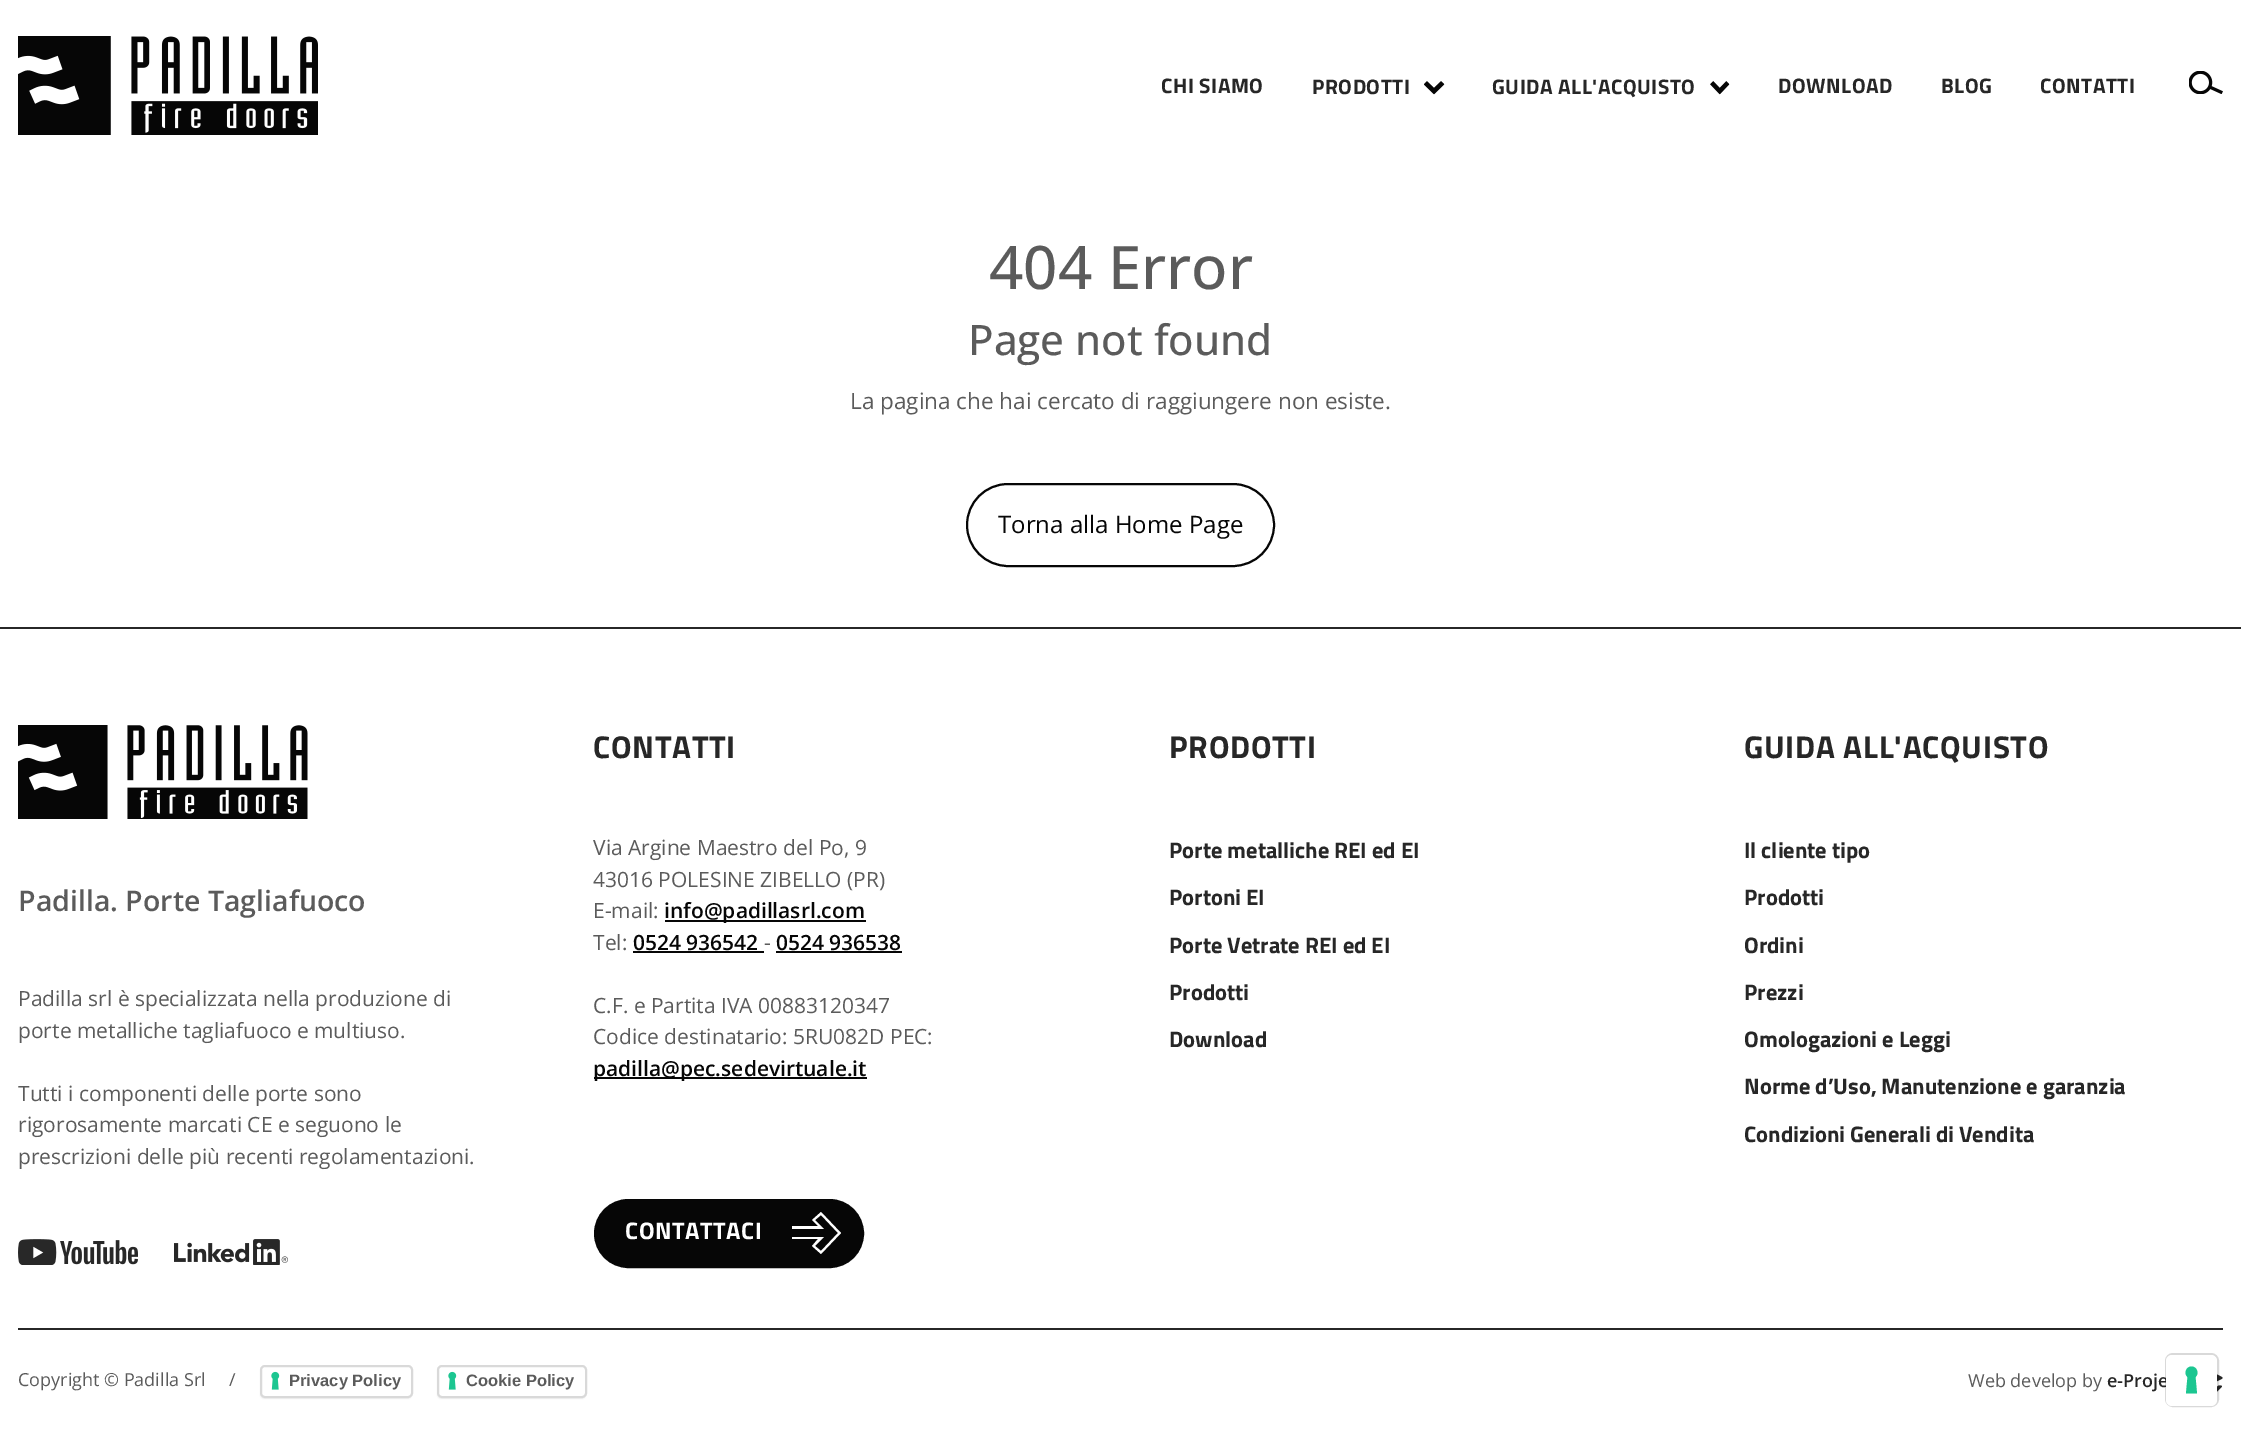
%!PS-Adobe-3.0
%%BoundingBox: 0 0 2241 1429
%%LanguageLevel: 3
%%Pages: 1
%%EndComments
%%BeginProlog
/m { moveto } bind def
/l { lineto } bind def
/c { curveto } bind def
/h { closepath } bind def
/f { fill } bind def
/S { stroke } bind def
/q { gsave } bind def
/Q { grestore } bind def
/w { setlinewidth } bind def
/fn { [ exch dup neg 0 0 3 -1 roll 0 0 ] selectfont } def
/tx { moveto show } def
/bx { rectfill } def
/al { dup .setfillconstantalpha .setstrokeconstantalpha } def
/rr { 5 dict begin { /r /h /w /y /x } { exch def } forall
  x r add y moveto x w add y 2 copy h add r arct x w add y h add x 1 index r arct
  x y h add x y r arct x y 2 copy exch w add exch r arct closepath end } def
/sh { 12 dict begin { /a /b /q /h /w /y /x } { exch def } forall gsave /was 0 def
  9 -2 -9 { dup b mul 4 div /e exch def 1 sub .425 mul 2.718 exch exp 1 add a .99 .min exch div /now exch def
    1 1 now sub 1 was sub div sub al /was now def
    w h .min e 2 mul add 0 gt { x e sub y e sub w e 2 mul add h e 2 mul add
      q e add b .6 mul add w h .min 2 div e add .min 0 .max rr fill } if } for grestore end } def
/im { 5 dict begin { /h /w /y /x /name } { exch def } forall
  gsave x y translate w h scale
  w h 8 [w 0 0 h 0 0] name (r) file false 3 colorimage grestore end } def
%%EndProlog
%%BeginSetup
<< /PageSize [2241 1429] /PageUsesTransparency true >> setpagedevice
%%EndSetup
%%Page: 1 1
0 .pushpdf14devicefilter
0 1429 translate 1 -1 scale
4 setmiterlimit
1 setgray
0 0 2241 1429 bx
(image0.raw) 18 36 300 99 im
/TitilliumWeb-Bold 21 fn
0.153 setgray
1161 93 m 0.5 0 (CHI SIAMO) ashow
1312 94 m 0.5 0 (PRODOTTI) ashow
(image1.raw) 1424 81 21 14 im
1492 94 m 0.5 0 (GUIDA ALL'ACQUISTO) ashow
(image2.raw) 1710 81 20 14 im
1778 93 m 0.5 0 (DOWNLOAD) ashow
1941 93 m 0.5 0 (BLOG) ashow
2040 93 m 0.5 0 (CONTATTI) ashow
(image3.raw) 2189 71 34 23 im
/OpenSans-Medium 60 fn
0.357 setgray
(404 Error) 989 289 tx
/OpenSans-Medium 42 fn
(Page not found) 968 355 tx
/OpenSans-Regular 22.5 fn
(La pagina che hai cercato di raggiungere non esiste.) 850 409 tx
0.024 setgray
2 w
967 484 307 82 41 rr S
/OpenSans-Regular 24 fn
(Torna alla Home Page) 998 533 tx
0.153 setgray
0 627 2241 2 bx
18 1328 2205 2 bx
(image4.raw) 18 725 290 94 im
/OpenSans-SemiBold 28.5 fn
0.357 setgray
(Padilla. Porte Tagliafuoco) 18 911 tx
/OpenSans-Regular 21 fn
(Padilla srl è specializzata nella produzione di) 18 1006 tx
(porte metalliche tagliafuoco e multiuso.) 18 1038 tx
(Tutti i componenti delle porte sono) 18 1101 tx
(rigorosamente marcati CE e seguono le) 18 1132 tx
(prescrizioni delle più recenti regolamentazioni.) 18 1164 tx
(image5.raw) 18 1239 120 26 im
(image6.raw) 174 1239 114 26 im
/TitilliumWeb-Bold 31.5 fn
0.153 setgray
593 758 m 0.75 0 (CONTATTI) ashow
/OpenSans-Regular 21 fn
0.357 setgray
(Via Argine Maestro del Po, 9) 593 855 tx
(43016 POLESINE ZIBELLO \(PR\)) 593 887 tx
(E-mail:) 593 918 tx
0.024 setgray
665 920 201 2 bx
/OpenSans-SemiBold 21 fn
(info@padillasrl.com) 664 918 tx
/OpenSans-Regular 21 fn
0.357 setgray
(Tel:) 593 950 tx
/OpenSans-SemiBold 21 fn
0.024 setgray
(0524 936542) 633 950 tx
633 951 131 2 bx
/OpenSans-Regular 21 fn
0.357 setgray
(-) 764 950 tx
/OpenSans-SemiBold 21 fn
0.024 setgray
(0524 936538) 776 950 tx
776 951 126 2 bx
/OpenSans-Regular 21 fn
0.357 setgray
(C.F. e Partita IVA 00883120347) 593 1013 tx
(Codice destinatario: 5RU082D PEC:) 593 1044 tx
0.024 setgray
594 1077 273 2 bx
/OpenSans-SemiBold 21 fn
(padilla@pec.sedevirtuale.it) 593 1076 tx
595 1200 268 67 33.5 rr q f Q
S
/TitilliumWeb-Bold 24 fn
1 setgray
625 1239 m 0.5 0 (CONTATTACI) ashow
821 1212 m 812 1220 l 818 1226 l 792 1226 l 792 1229 l 824 1229 l 815 1220 l 821 1215 l 838 1233 l 821 1251 l 815 1246 l 824 1237 l 792 1237 l 792 1239 l 818 1239 l 812 1246 l 821 1254 l 841 1233 l h f
/TitilliumWeb-Bold 31.5 fn
0.153 setgray
1169 758 m 0.75 0 (PRODOTTI) ashow
/TitilliumWeb-Bold 22.5 fn
(Porte metalliche REI ed EI) 1169 858 tx
(Portoni EI) 1169 905 tx
(Porte Vetrate REI ed EI) 1169 953 tx
(Prodotti) 1169 1000 tx
(Download) 1169 1047 tx
/TitilliumWeb-Bold 31.5 fn
1744 758 m 0.75 0 (GUIDA ALL'ACQUISTO) ashow
/TitilliumWeb-Bold 22.5 fn
(Il cliente tipo) 1744 858 tx
(Prodotti) 1744 905 tx
(Ordini) 1744 953 tx
(Prezzi) 1744 1000 tx
(Omologazioni e Leggi) 1744 1047 tx
(Norme d’Uso, Manutenzione e garanzia) 1744 1094 tx
(Condizioni Generali di Vendita) 1744 1142 tx
/OpenSans-Regular 18 fn
0.357 setgray
(Copyright © Padilla Srl) 18 1386 tx
(/) 229 1386 tx
0 setgray
261 1368 150 30 3 1 0.15 sh
1 setgray
260 1365 153 33 5 rr f
(image7.raw) 271 1371 9 19 im
0.851 setgray
261 1366 151 31 4 rr S
/LiberationSans-Bold 16.5 fn
0.357 setgray
(Privacy Policy) 289 1386 tx
0 setgray
438 1368 147 30 3 1 0.15 sh
1 setgray
437 1365 150 33 5 rr f
(image7.raw) 448 1371 9 19 im
0.851 setgray
438 1366 148 31 4 rr S
0.357 setgray
(Cookie Policy) 466 1386 tx
/OpenSans-Regular 18 fn
(Web develop by) 1968 1387 tx
/OpenSans-SemiBold 18 fn
0.153 setgray
(e-Proje) 2107 1387 tx
(image8.raw) 2217 1374 6 18 im
0.15 al
0 setgray
2166 1354 52 52 7 rr S
1 al
1 setgray
2166 1355 51 51 6 rr f
0.11 0.776 0.569 setrgbcolor
2191.5 1366.5 m 2197 1366.5 2199.5 1373.5 2195.5 1377 c 2197 1393.5 l 2186 1393.5 l 2187.5 1377 l 2183.5 1373.5 2186 1366.5 2191.5 1366.5 c h eofill
.poppdf14devicefilter showpage
%%EOF
